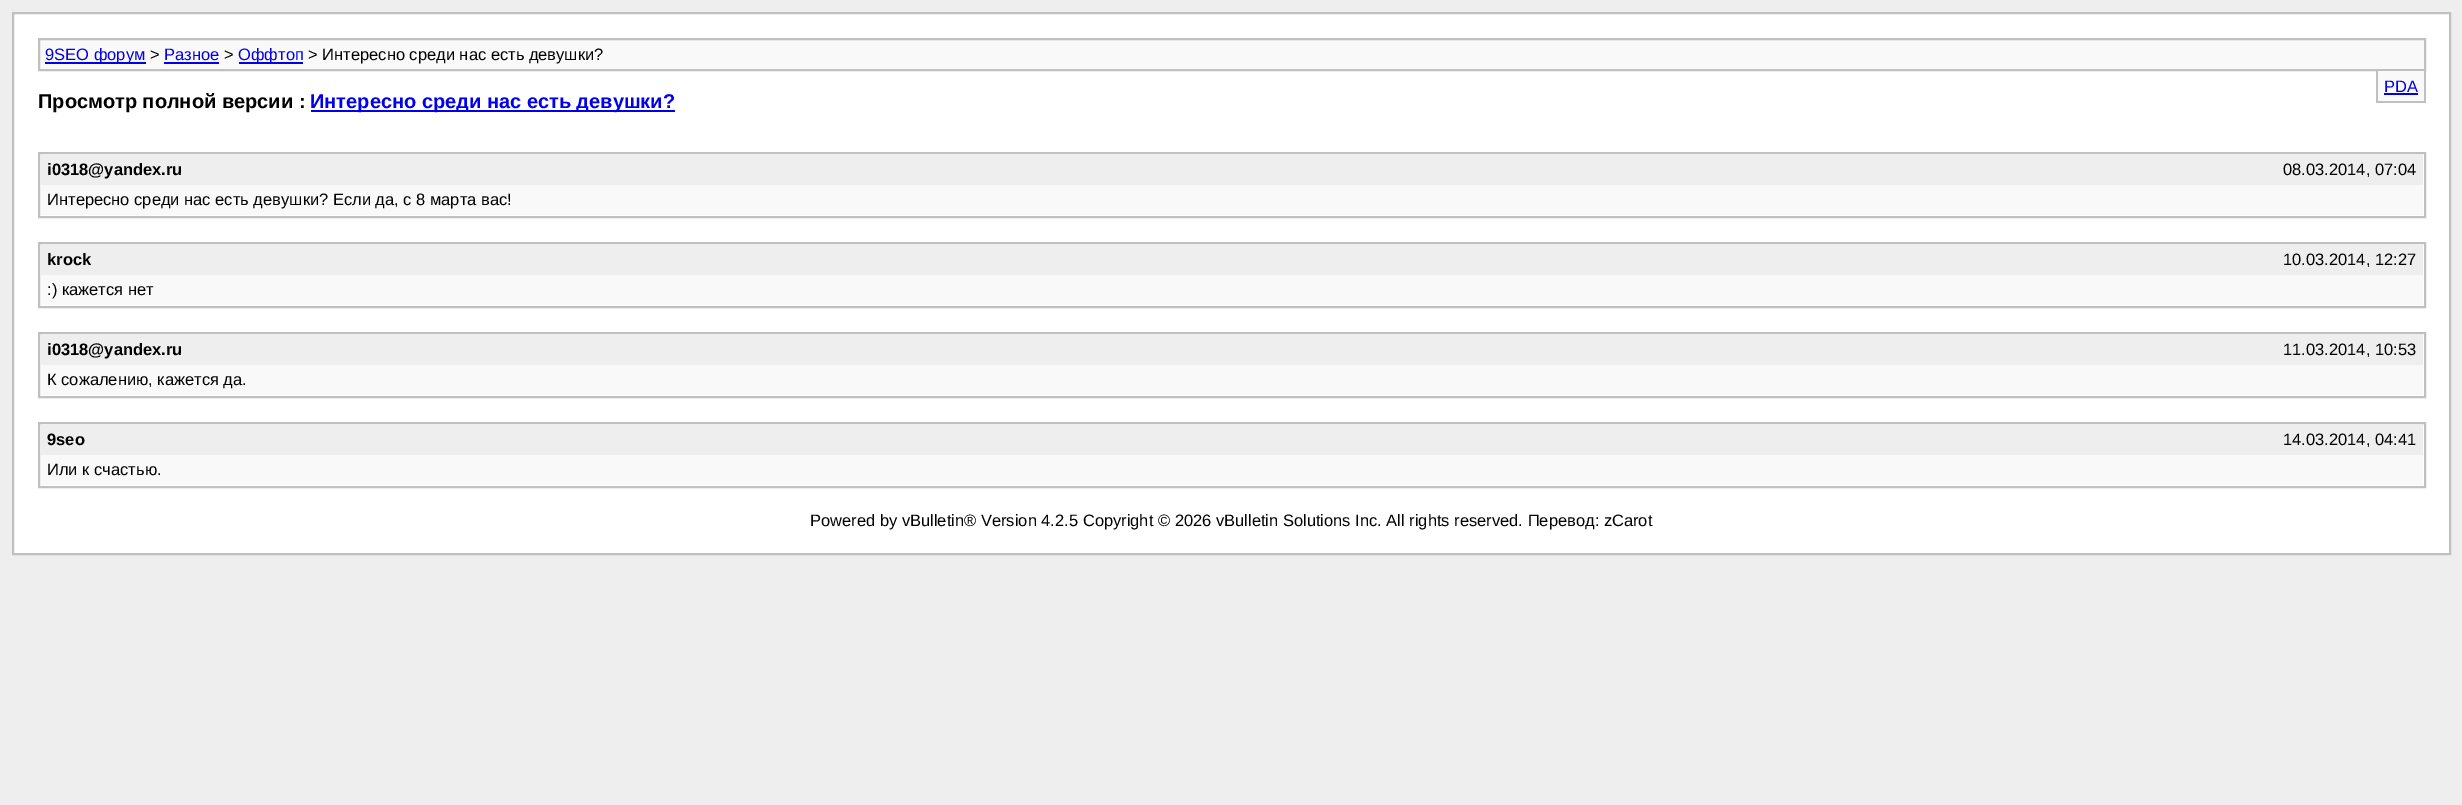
%!PS-Adobe-3.0
%%BoundingBox: 0 0 2462 805
%%LanguageLevel: 3
%%Pages: 1
%%EndComments
%%BeginProlog
/m { moveto } bind def
/l { lineto } bind def
/h { closepath } bind def
/f { fill } bind def
/S { stroke } bind def
/q { gsave } bind def
/Q { grestore } bind def
/w { setlinewidth } bind def
/fn { [ exch dup neg 0 0 3 -1 roll 0 0 ] selectfont } def
/tx { moveto show } def
/bx { rectfill } def
%%EndProlog
%%BeginSetup
<< /PageSize [2462 805] >> setpagedevice
%%EndSetup
%%Page: 1 1
0 805 translate 1 -1 scale
4 setmiterlimit
0.933 setgray
0 0 2462 805 bx
1 setgray
13 13 m 2450 13 l 2450 554 l 13 554 l h q f Q
0.753 setgray
2 w
S
0.976 setgray
39 39 m 2425 39 l 2425 70 l 39 70 l h q f Q
0.753 setgray
S
0 0 0.933 setrgbcolor
45 62 101 2 bx
/LiberationSans-Regular 16.5 fn
(9SEO форум) 45 60 tx
0 setgray
(>) 150 60 tx
0 0 0.933 setrgbcolor
(Разное) 164 60 tx
164 62 55 2 bx
0 setgray
(>) 224 60 tx
0 0 0.933 setrgbcolor
239 62 64 2 bx
(Оффтоп) 238 60 tx
0 setgray
(> Интересно среди нас есть девушки?) 308 60 tx
0.976 setgray
2378 71 46 30 bx
0.753 setgray
2424 71 2 31 bx
2376 101 50 2 bx
2376 71 2 31 bx
0 0 0.933 setrgbcolor
(PDA) 2384 92 tx
2384 93 34 2 bx
/LiberationSans-Bold 20 fn
0 setgray
(Просмотр полной версии :) 38 108 tx
0 0 0.933 setrgbcolor
311 110 364 2 bx
(Интересно среди нас есть девушки?) 310 108 tx
0.753 setgray
39 153 2386 64 rectstroke
0.933 setgray
41 155 2382 30 bx
/LiberationSans-Bold 16.5 fn
0 setgray
(i0318@yandex.ru) 47 175 tx
/LiberationSans-Regular 16.5 fn
(08.03.2014, 07:04) 2283 175 tx
0.976 setgray
41 185 2382 30 bx
0 setgray
(Интересно среди нас есть девушки? Если да, с 8 марта вас!) 47 205 tx
0.753 setgray
39 243 2386 64 rectstroke
0.933 setgray
41 245 2382 30 bx
/LiberationSans-Bold 16.5 fn
0 setgray
(krock) 47 265 tx
/LiberationSans-Regular 16.5 fn
(10.03.2014, 12:27) 2283 265 tx
0.976 setgray
41 275 2382 30 bx
0 setgray
(:\) кажется нет) 47 295 tx
0.753 setgray
39 333 2386 64 rectstroke
0.933 setgray
41 335 2382 30 bx
/LiberationSans-Bold 16.5 fn
0 setgray
(i0318@yandex.ru) 47 355 tx
/LiberationSans-Regular 16.5 fn
(11.03.2014, 10:53) 2283 355 tx
0.976 setgray
41 365 2382 30 bx
0 setgray
(К сожалению, кажется да.) 47 385 tx
0.753 setgray
39 423 2386 64 rectstroke
0.933 setgray
41 425 2382 30 bx
/LiberationSans-Bold 16.5 fn
0 setgray
(9seo) 47 445 tx
/LiberationSans-Regular 16.5 fn
(14.03.2014, 04:41) 2283 445 tx
0.976 setgray
41 455 2382 30 bx
0 setgray
(Или к счастью.) 47 475 tx
(Powered by vBulletin® Version 4.2.5 Copyright © 2026 vBulletin Solutions Inc. All rights reserved. Перевод: zCarot) 810 526 tx
showpage
%%EOF
